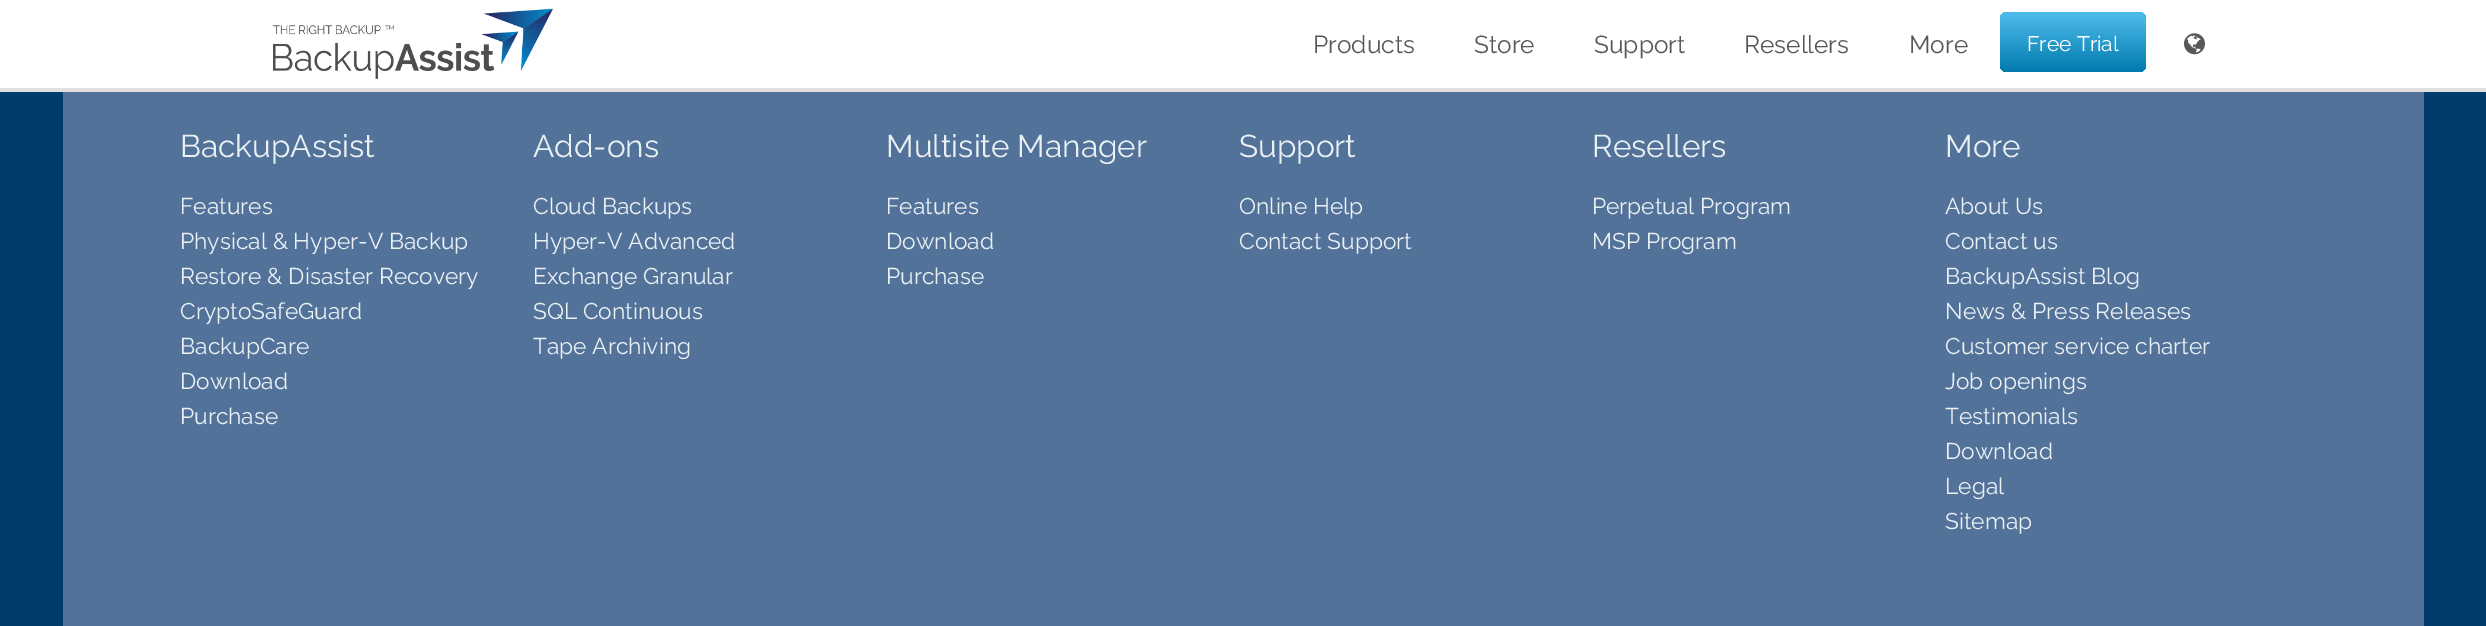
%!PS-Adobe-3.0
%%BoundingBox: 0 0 2486 626
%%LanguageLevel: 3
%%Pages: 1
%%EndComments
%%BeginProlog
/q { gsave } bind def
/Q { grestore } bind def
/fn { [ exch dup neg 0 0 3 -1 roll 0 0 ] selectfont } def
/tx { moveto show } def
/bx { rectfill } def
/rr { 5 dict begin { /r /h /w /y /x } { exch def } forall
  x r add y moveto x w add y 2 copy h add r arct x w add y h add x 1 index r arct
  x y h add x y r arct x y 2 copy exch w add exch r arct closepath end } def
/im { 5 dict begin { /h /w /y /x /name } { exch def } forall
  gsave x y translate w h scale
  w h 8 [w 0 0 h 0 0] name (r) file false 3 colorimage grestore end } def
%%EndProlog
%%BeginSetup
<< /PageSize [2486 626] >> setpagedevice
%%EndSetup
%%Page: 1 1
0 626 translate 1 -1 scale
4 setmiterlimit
0 0.235 0.42 setrgbcolor
0 0 2486 626 bx
1 setgray
0 0 2486 88 bx
0.878 setgray
0 88 2486 4 bx
(image0.raw) 273 8 280 71 im
/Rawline-Regular 24.5 fn
0.349 0.345 0.337 setrgbcolor
(Products) 1313 53 tx
(Store) 1474 53 tx
(Support) 1594 53 tx
(Resellers) 1744 53 tx
(More) 1909 53 tx
q 2000 12 146 60 7 rr clip newpath
<< /ShadingType 2 /ColorSpace /DeviceRGB /Coords [2073 12 2073 72] /Extend [true true] /Function << /FunctionType 2 /Domain [0 1] /C0 [0.306 0.741 0.922] /C1 [0.008 0.478 0.682] /N 1 >> >> shfill Q
/Rawline-Regular 21 fn
1 setgray
(Free Trial) 2027 51 tx
(image1.raw) 2184 33 21 22 im
0.325 0.447 0.604 setrgbcolor
63 92 2361 534 bx
/Rawline-Regular 31.5 fn
0.918 0.945 0.957 setrgbcolor
(BackupAssist) 180 157 tx
/Rawline-Regular 22.75 fn
(Features) 180 214 tx
(Physical & Hyper-V Backup) 180 249 tx
(Restore & Disaster Recovery) 180 284 tx
(CryptoSafeGuard) 180 319 tx
(BackupCare) 180 354 tx
(Download) 180 389 tx
(Purchase) 180 424 tx
/Rawline-Regular 31.5 fn
(Add-ons) 533 157 tx
/Rawline-Regular 22.75 fn
(Cloud Backups) 533 214 tx
(Hyper-V Advanced) 533 249 tx
(Exchange Granular) 533 284 tx
(SQL Continuous) 533 319 tx
(Tape Archiving) 533 354 tx
/Rawline-Regular 31.5 fn
(Multisite Manager) 886 157 tx
/Rawline-Regular 22.75 fn
(Features) 886 214 tx
(Download) 886 249 tx
(Purchase) 886 284 tx
/Rawline-Regular 31.5 fn
(Support) 1239 157 tx
/Rawline-Regular 22.75 fn
(Online Help) 1239 214 tx
(Contact Support) 1239 249 tx
/Rawline-Regular 31.5 fn
(Resellers) 1592 157 tx
/Rawline-Regular 22.75 fn
(Perpetual Program) 1592 214 tx
(MSP Program) 1592 249 tx
/Rawline-Regular 31.5 fn
(More) 1945 157 tx
/Rawline-Regular 22.75 fn
(About Us) 1945 214 tx
(Contact us) 1945 249 tx
(BackupAssist Blog) 1945 284 tx
(News & Press Releases) 1945 319 tx
(Customer service charter) 1945 354 tx
(Job openings) 1945 389 tx
(Testimonials) 1945 424 tx
(Download) 1945 459 tx
(Legal) 1945 494 tx
(Sitemap) 1945 529 tx
showpage
%%EOF
